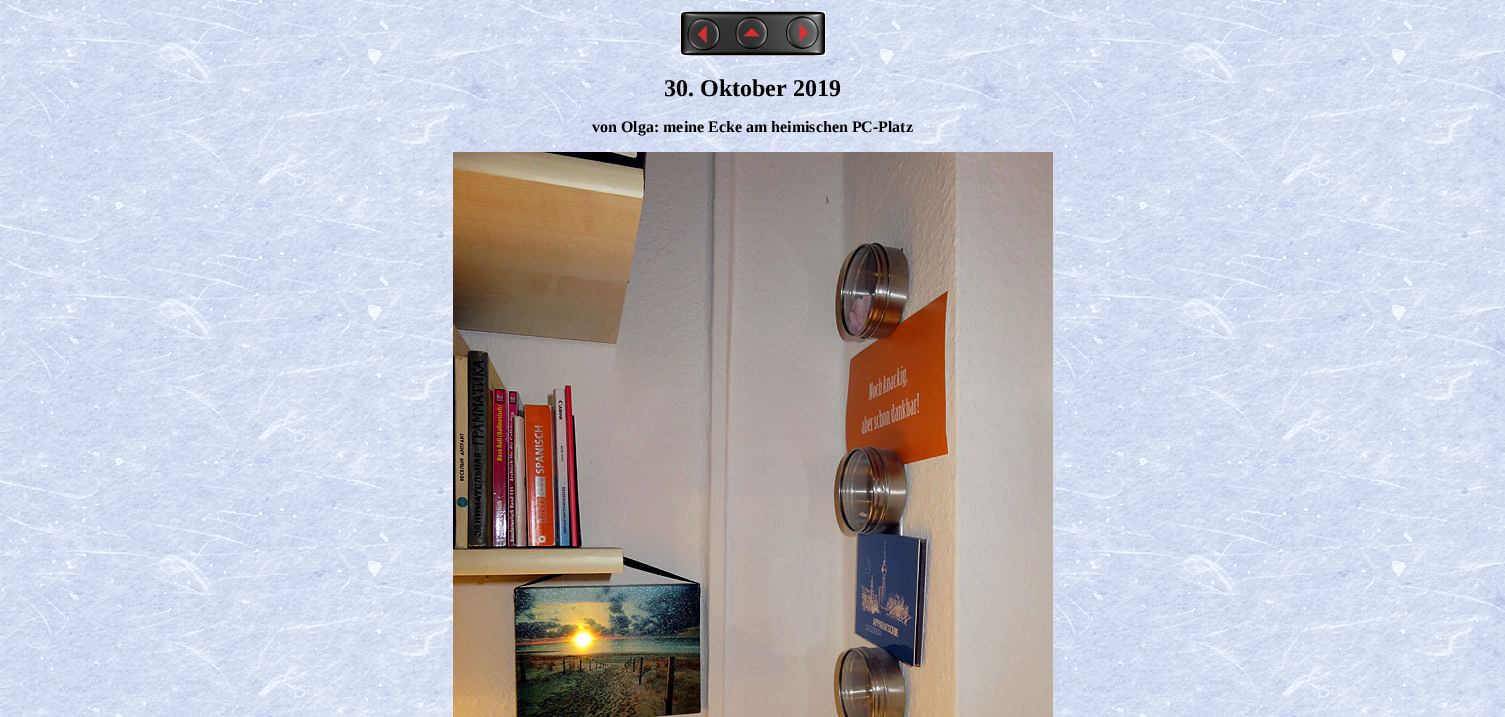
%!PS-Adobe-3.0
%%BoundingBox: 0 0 1505 717
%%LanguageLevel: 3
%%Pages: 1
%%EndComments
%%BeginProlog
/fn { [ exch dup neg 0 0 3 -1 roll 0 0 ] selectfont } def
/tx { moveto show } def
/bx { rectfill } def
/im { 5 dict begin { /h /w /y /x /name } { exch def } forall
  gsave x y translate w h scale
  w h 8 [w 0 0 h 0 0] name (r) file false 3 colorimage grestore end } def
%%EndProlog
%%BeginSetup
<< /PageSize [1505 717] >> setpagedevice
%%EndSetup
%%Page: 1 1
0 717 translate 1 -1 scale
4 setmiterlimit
1 setgray
0 0 1505 717 bx
(image0.raw) 0 0 1505 717 im
(image1.raw) 680 11 49 45 im
(image2.raw) 729 11 47 45 im
(image3.raw) 776 11 50 45 im
/LiberationSerif-Bold 24 fn
0 setgray
(30. Oktober 2019) 664 96 tx
/LiberationSerif-Bold 16 fn
(von Olga: meine Ecke am heimischen PC-Platz) 592 132 tx
(image4.raw) 453 152 600 565 im
showpage
%%EOF
